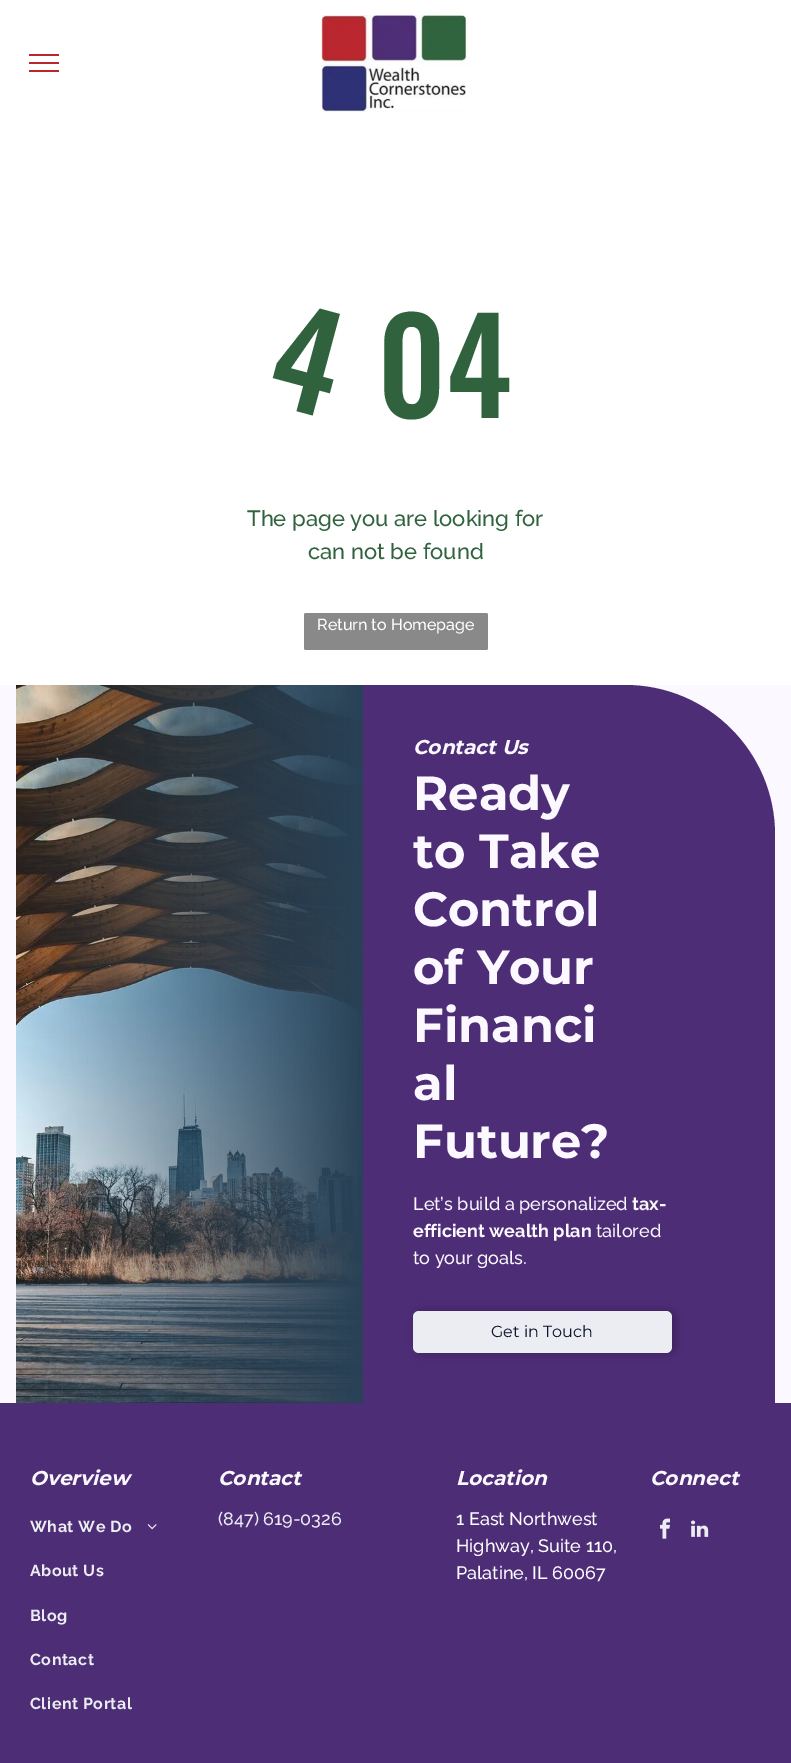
%!PS-Adobe-3.0
%%BoundingBox: 0 0 791 1763
%%LanguageLevel: 3
%%Pages: 1
%%EndComments
%%BeginProlog
/m { moveto } bind def
/l { lineto } bind def
/c { curveto } bind def
/h { closepath } bind def
/f { fill } bind def
/q { gsave } bind def
/Q { grestore } bind def
/fn { [ exch dup neg 0 0 3 -1 roll 0 0 ] selectfont } def
/tx { moveto show } def
/bx { rectfill } def
/al { dup .setfillconstantalpha .setstrokeconstantalpha } def
/rr { 5 dict begin { /r /h /w /y /x } { exch def } forall
  x r add y moveto x w add y 2 copy h add r arct x w add y h add x 1 index r arct
  x y h add x y r arct x y 2 copy exch w add exch r arct closepath end } def
/sh { 12 dict begin { /a /b /q /h /w /y /x } { exch def } forall gsave /was 0 def
  9 -2 -9 { dup b mul 4 div /e exch def 1 sub .425 mul 2.718 exch exp 1 add a .99 .min exch div /now exch def
    1 1 now sub 1 was sub div sub al /was now def
    w h .min e 2 mul add 0 gt { x e sub y e sub w e 2 mul add h e 2 mul add
      q e add b .6 mul add w h .min 2 div e add .min 0 .max rr fill } if } for grestore end } def
/im { 5 dict begin { /h /w /y /x /name } { exch def } forall
  gsave x y translate w h scale
  w h 8 [w 0 0 h 0 0] name (r) file false 3 colorimage grestore end } def
%%EndProlog
%%BeginSetup
<< /PageSize [791 1763] /PageUsesTransparency true >> setpagedevice
%%EndSetup
%%Page: 1 1
0 .pushpdf14devicefilter
0 1763 translate 1 -1 scale
4 setmiterlimit
1 setgray
0 0 791 1763 bx
0.729 0.153 0.173 setrgbcolor
29 54 30 2 bx
29 62 30 2 bx
29 70 30 2 bx
(image0.raw) 321 15 148 97 im
/Oswald-Medium 130 fn
0.188 0.388 0.239 setrgbcolor
q 262 402 translate 15 rotate 0 0 m (4) show Q
(04) 377 418 tx
/Raleway-Medium 22 fn
(The page you are looking for) 247 526 tx
(can not be found) 308 559 tx
0.537 setgray
304 613 184 37 2 rr f
/Raleway-Medium 16 fn
1 setgray
(Return to Homepage) 317 630 tx
0.984 0.976 1 setrgbcolor
0 685 791 718 bx
(image1.raw) 16 685 347 718 im
0.306 0.176 0.467 setrgbcolor
363 685 m 625 685 l 708 685 775 752 775 835 c 775 1403 l 363 1403 l h f
/Montserrat-BoldItalic 20 fn
0.984 0.976 1 setrgbcolor
(Contact Us) 413 754 tx
/Montserrat-Bold 48 fn
(Ready) 413 810 tx
(to Take) 413 868 tx
(Control) 413 926 tx
(of Your) 413 984 tx
(Financi) 413 1042 tx
(al) 413 1100 tx
(Future?) 413 1158 tx
/Raleway-Medium 18 fn
(Let’s build a personalized) 413 1210 tx
/Raleway-Bold 18 fn
(tax-) 632 1210 tx
(efficient wealth plan) 413 1237 tx
/Raleway-Medium 18 fn
(tailored) 596 1237 tx
(to your goals.) 413 1264 tx
0 setgray
416 1311 259 42 6 5.5 0.25 sh
0.922 0.929 0.949 setrgbcolor
413 1311 259 42 6 rr f
/Montserrat-Regular 16 fn
0.039 0.067 0.157 setrgbcolor
(Get in Touch) 491 1337 tx
0.306 0.176 0.467 setrgbcolor
0 1403 791 360 bx
/Montserrat-BoldItalic 20 fn
0.984 0.976 1 setrgbcolor
(Overview) 30 1485 tx
/Raleway-Bold 16 fn
0.922 0.929 0.949 setrgbcolor
30 1532 m 0.5 0 (What We Do) ashow
(image2.raw) 147 1524 10 6 im
30 1576 m 0.5 0 (About Us) ashow
30 1621 m 0.5 0 (Blog) ashow
30 1665 m 0.5 0 (Contact) ashow
30 1709 m 0.5 0 (Client Portal) ashow
/Montserrat-BoldItalic 20 fn
0.984 0.976 1 setrgbcolor
(Contact) 218 1485 tx
/Raleway-Medium 18 fn
0.922 0.929 0.949 setrgbcolor
(\(847\) 619-0326) 218 1525 tx
/Montserrat-BoldItalic 20 fn
0.984 0.976 1 setrgbcolor
(Location) 456 1485 tx
/Raleway-Medium 18 fn
1 setgray
(1 East Northwest) 456 1525 tx
(Highway, Suite 110,) 456 1552 tx
(Palatine, IL 60067) 456 1579 tx
/Montserrat-BoldItalic 20 fn
0.984 0.976 1 setrgbcolor
(Connect) 650 1485 tx
(image3.raw) 660 1518 10 21 im
(image4.raw) 691 1520 18 17 im
.poppdf14devicefilter showpage
%%EOF
